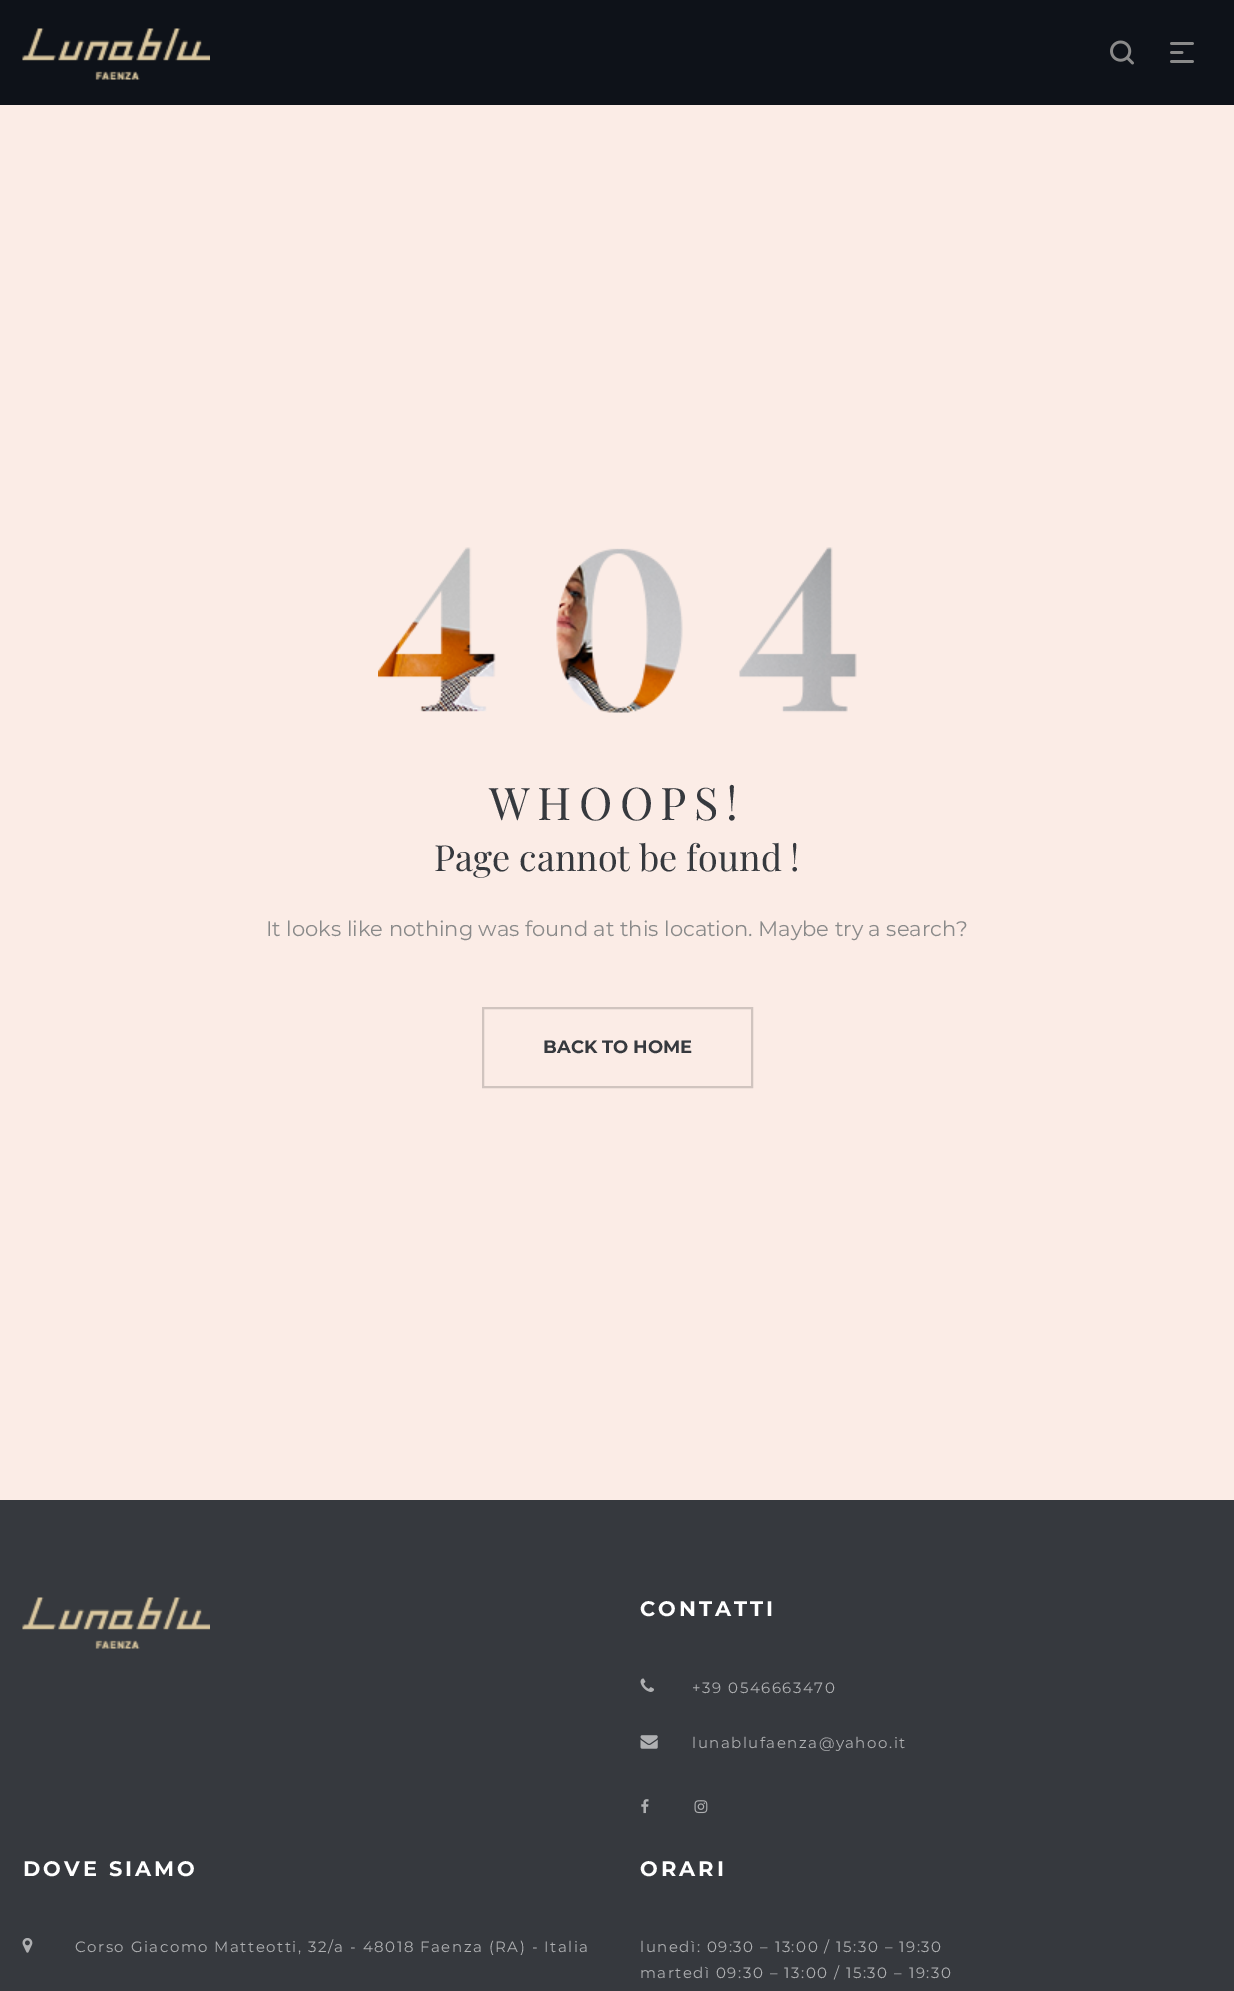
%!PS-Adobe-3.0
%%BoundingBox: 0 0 1234 1991
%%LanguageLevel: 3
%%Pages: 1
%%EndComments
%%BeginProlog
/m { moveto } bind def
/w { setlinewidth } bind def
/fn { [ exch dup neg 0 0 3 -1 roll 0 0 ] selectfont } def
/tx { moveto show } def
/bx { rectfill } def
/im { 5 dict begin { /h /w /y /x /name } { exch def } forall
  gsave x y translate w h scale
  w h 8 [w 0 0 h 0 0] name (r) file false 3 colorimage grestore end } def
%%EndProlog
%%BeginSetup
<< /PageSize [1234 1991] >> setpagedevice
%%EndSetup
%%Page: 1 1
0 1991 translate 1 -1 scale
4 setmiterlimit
0.984 0.925 0.902 setrgbcolor
0 0 1234 1991 bx
0.055 0.071 0.098 setrgbcolor
0 0 1234 105 bx
(image0.raw) 22 28 188 52 im
(image1.raw) 1110 40 24 25 im
(image2.raw) 1170 42 24 21 im
(image3.raw) 378 547 479 166 im
/PlayfairDisplay-Regular 45 fn
0.212 0.224 0.243 setrgbcolor
489 820 m 7.5 0 (WHOOPS!) ashow
/PlayfairDisplay-Regular 36 fn
(Page cannot be found !) 434 871 tx
/Montserrat-Regular 21 fn
0.541 setgray
(It looks like nothing was found at this location. Maybe try a search?) 266 936 tx
0.816 0.769 0.749 setrgbcolor
2 w
483 1008 269 79 rectstroke
/Montserrat-Bold 18 fn
0.212 0.224 0.243 setrgbcolor
(BACK TO HOME) 543 1053 tx
0 1500 1234 491 bx
(image4.raw) 22 1597 188 52 im
/Montserrat-Bold 21 fn
1 setgray
640 1616 m 3 0 (CONTATTI) ashow
(image5.raw) 640 1678 14 14 im
/Montserrat-Regular 15 fn
0.686 0.69 0.698 setrgbcolor
692 1693 m 1.5 0 (+39 0546663470) ashow
(image6.raw) 640 1735 18 14 im
692 1748 m 1.5 0 (lunablufaenza@yahoo.it) ashow
(image7.raw) 641 1799 8 15 im
(image8.raw) 694 1800 14 14 im
/Montserrat-Bold 21 fn
1 setgray
23 1876 m 3 0 (DOVE SIAMO) ashow
(image9.raw) 22 1938 11 15 im
/Montserrat-Regular 15 fn
0.686 0.69 0.698 setrgbcolor
75 1952 m 1.5 0 (Corso Giacomo Matteotti, 32/a - 48018 Faenza \(RA\) - Italia) ashow
/Montserrat-Bold 21 fn
1 setgray
640 1876 m 3 0 (ORARI) ashow
/Montserrat-Regular 15 fn
0.686 0.69 0.698 setrgbcolor
640 1952 m 1.5 0 (lunedì: 09:30 – 13:00 / 15:30 – 19:30) ashow
640 1978 m 1.5 0 (martedì 09:30 – 13:00 / 15:30 – 19:30) ashow
showpage
%%EOF
